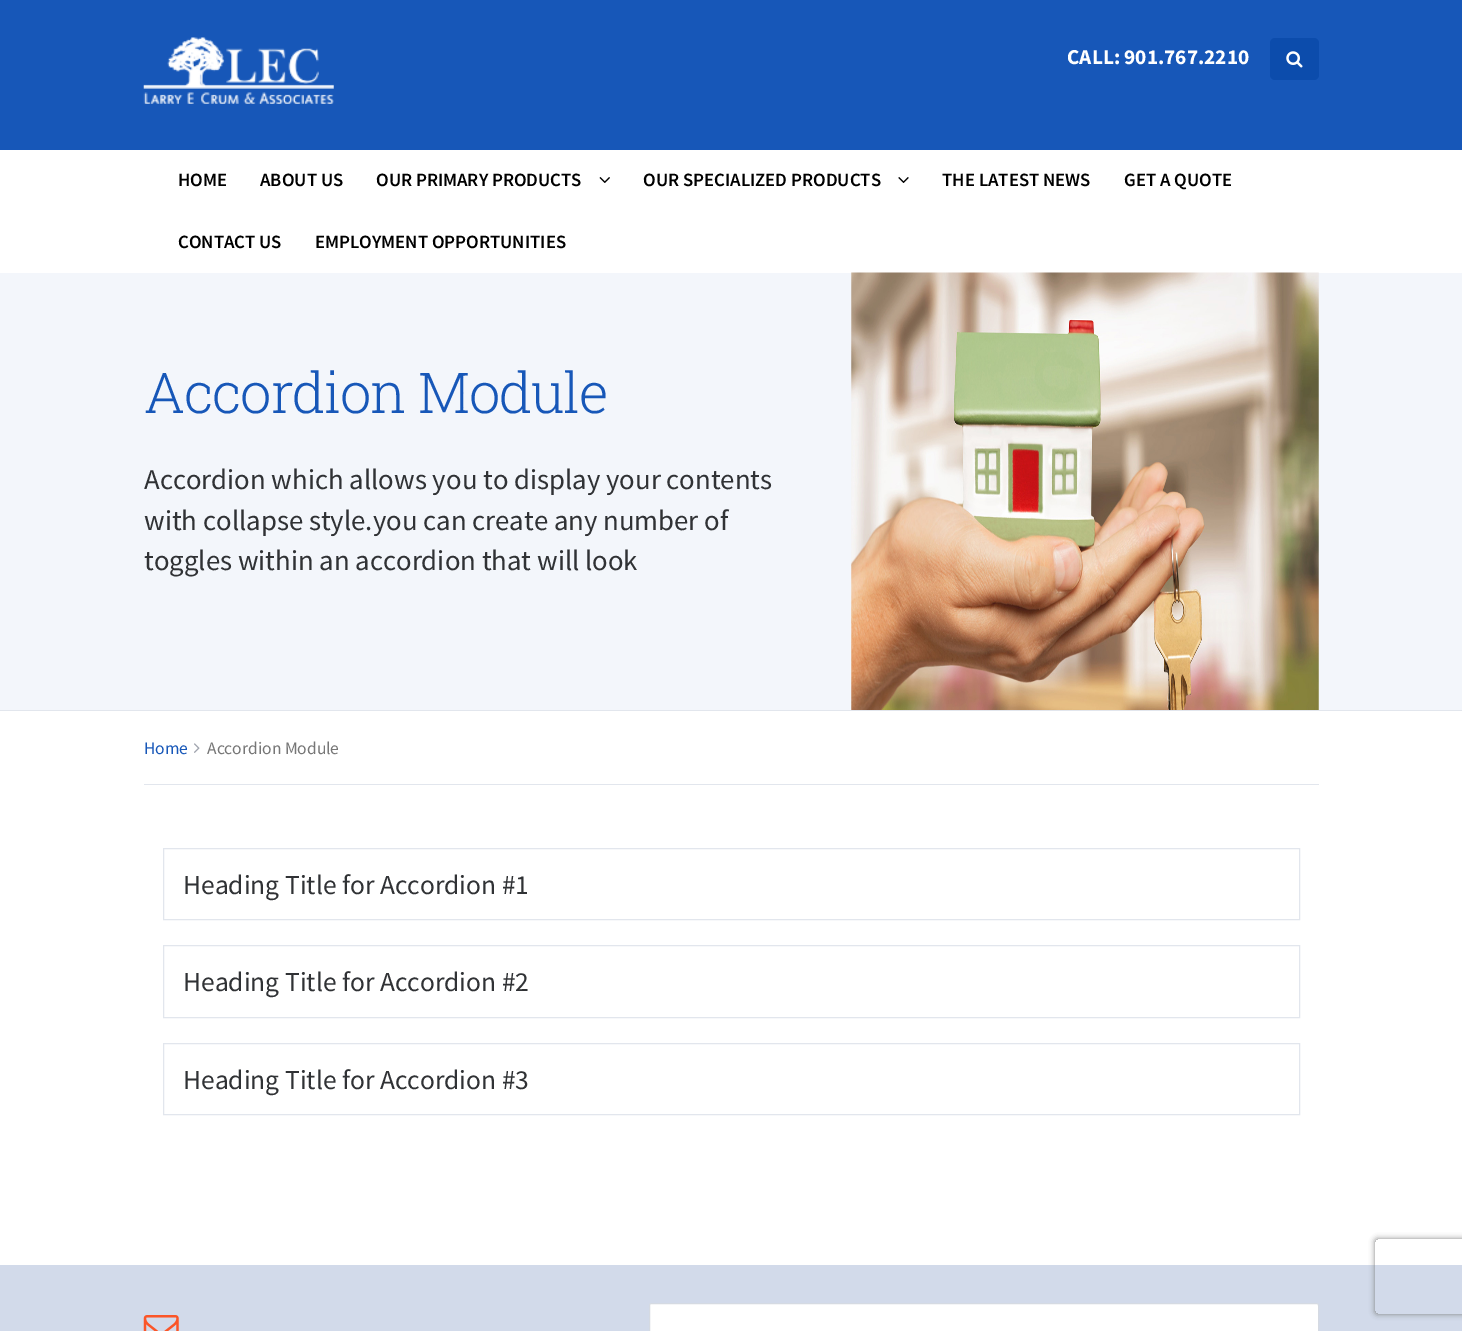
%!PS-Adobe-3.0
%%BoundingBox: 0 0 1462 1331
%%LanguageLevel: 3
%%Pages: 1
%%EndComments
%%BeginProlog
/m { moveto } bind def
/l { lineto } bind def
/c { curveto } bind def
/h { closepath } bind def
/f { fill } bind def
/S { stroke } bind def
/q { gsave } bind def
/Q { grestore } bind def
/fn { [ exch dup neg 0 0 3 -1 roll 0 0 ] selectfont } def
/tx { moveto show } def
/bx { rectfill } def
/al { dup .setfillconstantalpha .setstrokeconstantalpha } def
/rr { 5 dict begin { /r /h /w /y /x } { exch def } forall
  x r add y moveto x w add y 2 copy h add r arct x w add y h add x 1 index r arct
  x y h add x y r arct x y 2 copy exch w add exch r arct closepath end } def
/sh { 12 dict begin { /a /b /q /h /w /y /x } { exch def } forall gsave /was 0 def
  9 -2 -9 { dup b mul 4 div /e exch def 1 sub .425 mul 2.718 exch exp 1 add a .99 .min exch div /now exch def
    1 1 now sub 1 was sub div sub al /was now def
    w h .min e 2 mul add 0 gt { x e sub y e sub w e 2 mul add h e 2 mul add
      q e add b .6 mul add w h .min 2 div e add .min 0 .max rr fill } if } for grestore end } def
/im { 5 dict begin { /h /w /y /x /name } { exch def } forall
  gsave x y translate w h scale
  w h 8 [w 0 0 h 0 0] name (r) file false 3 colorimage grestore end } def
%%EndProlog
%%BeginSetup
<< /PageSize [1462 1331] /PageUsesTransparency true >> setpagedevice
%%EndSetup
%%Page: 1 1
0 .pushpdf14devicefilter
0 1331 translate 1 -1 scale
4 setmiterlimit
1 setgray
0 0 1462 1331 bx
0.09 0.341 0.722 setrgbcolor
0 0 1462 150 bx
(image0.raw) 143 37 191 67 im
/SourceSansPro-Bold 21.25 fn
1 setgray
(CALL: 901.767.2210) 1067 64 tx
0.047 0.298 0.675 setrgbcolor
1270 38 49 42 5 rr f
(image1.raw) 1286 51 17 17 im
/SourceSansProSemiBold-SemiBold 18.75 fn
0 setgray
(HOME) 178 186 tx
(ABOUT US) 260 186 tx
(OUR PRIMARY PRODUCTS) 376 186 tx
(image2.raw) 599 177 11 6 im
(OUR SPECIALIZED PRODUCTS) 643 186 tx
(image3.raw) 898 177 11 6 im
(THE LATEST NEWS) 942 186 tx
(GET A QUOTE) 1124 186 tx
(CONTACT US) 178 248 tx
(EMPLOYMENT OPPORTUNITIES) 315 248 tx
0.953 0.965 0.984 setrgbcolor
0 273 1462 437 bx
0.886 0.902 0.929 setrgbcolor
0 710 1462 1 bx
/RobotoSlab-Light 56.25 fn
0.09 0.341 0.722 setrgbcolor
144 413 m -1.25 0 (Accordion Module) ashow
/SourceSansPro-Regular 28.75 fn
0.188 0.196 0.208 setrgbcolor
(Accordion which allows you to display your contents) 144 489 tx
(with collapse style.you can create any number of) 144 530 tx
(toggles within an accordion that will look) 144 570 tx
(image4.raw) 851 272 468 438 im
0.886 0.902 0.929 setrgbcolor
144 784 1175 1 bx
/SourceSansPro-Regular 17.5 fn
0.09 0.341 0.722 setrgbcolor
(Home) 144 754 tx
(image5.raw) 194 743 6 10 im
0.467 setgray
(Accordion Module) 207 754 tx
0.886 0.902 0.929 setrgbcolor
163.5 848.5 1136 71 rectstroke
/SourceSansPro-Regular 27.5 fn
0.188 0.196 0.208 setrgbcolor
(Heading Title for Accordion #1) 183 894 tx
0.886 0.902 0.929 setrgbcolor
163.5 945.5 1136 72 rectstroke
0.188 0.196 0.208 setrgbcolor
(Heading Title for Accordion #2) 183 991 tx
0.886 0.902 0.929 setrgbcolor
163.5 1043.5 1136 71 rectstroke
0.188 0.196 0.208 setrgbcolor
(Heading Title for Accordion #3) 183 1089 tx
0.824 0.855 0.918 setrgbcolor
0 1265 1462 66 bx
q
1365 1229 m 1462 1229 l 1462 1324 l 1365 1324 l h 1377.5 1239 m 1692.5 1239 l 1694 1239 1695 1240 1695 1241.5 c 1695 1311.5 l 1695 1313 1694 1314 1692.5 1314 c 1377.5 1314 l 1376 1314 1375 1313 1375 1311.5 c 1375 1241.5 l 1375 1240 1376 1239 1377.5 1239 c h eoclip newpath
0.502 setgray
1375 1239 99 75 2.5 3 1 sh
Q
(image6.raw) 143 1315 36 16 im
1 setgray
649.5 1303.5 669 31 2 rr q f Q
0.835 0.855 0.886 setrgbcolor
S
.poppdf14devicefilter showpage
%%EOF
